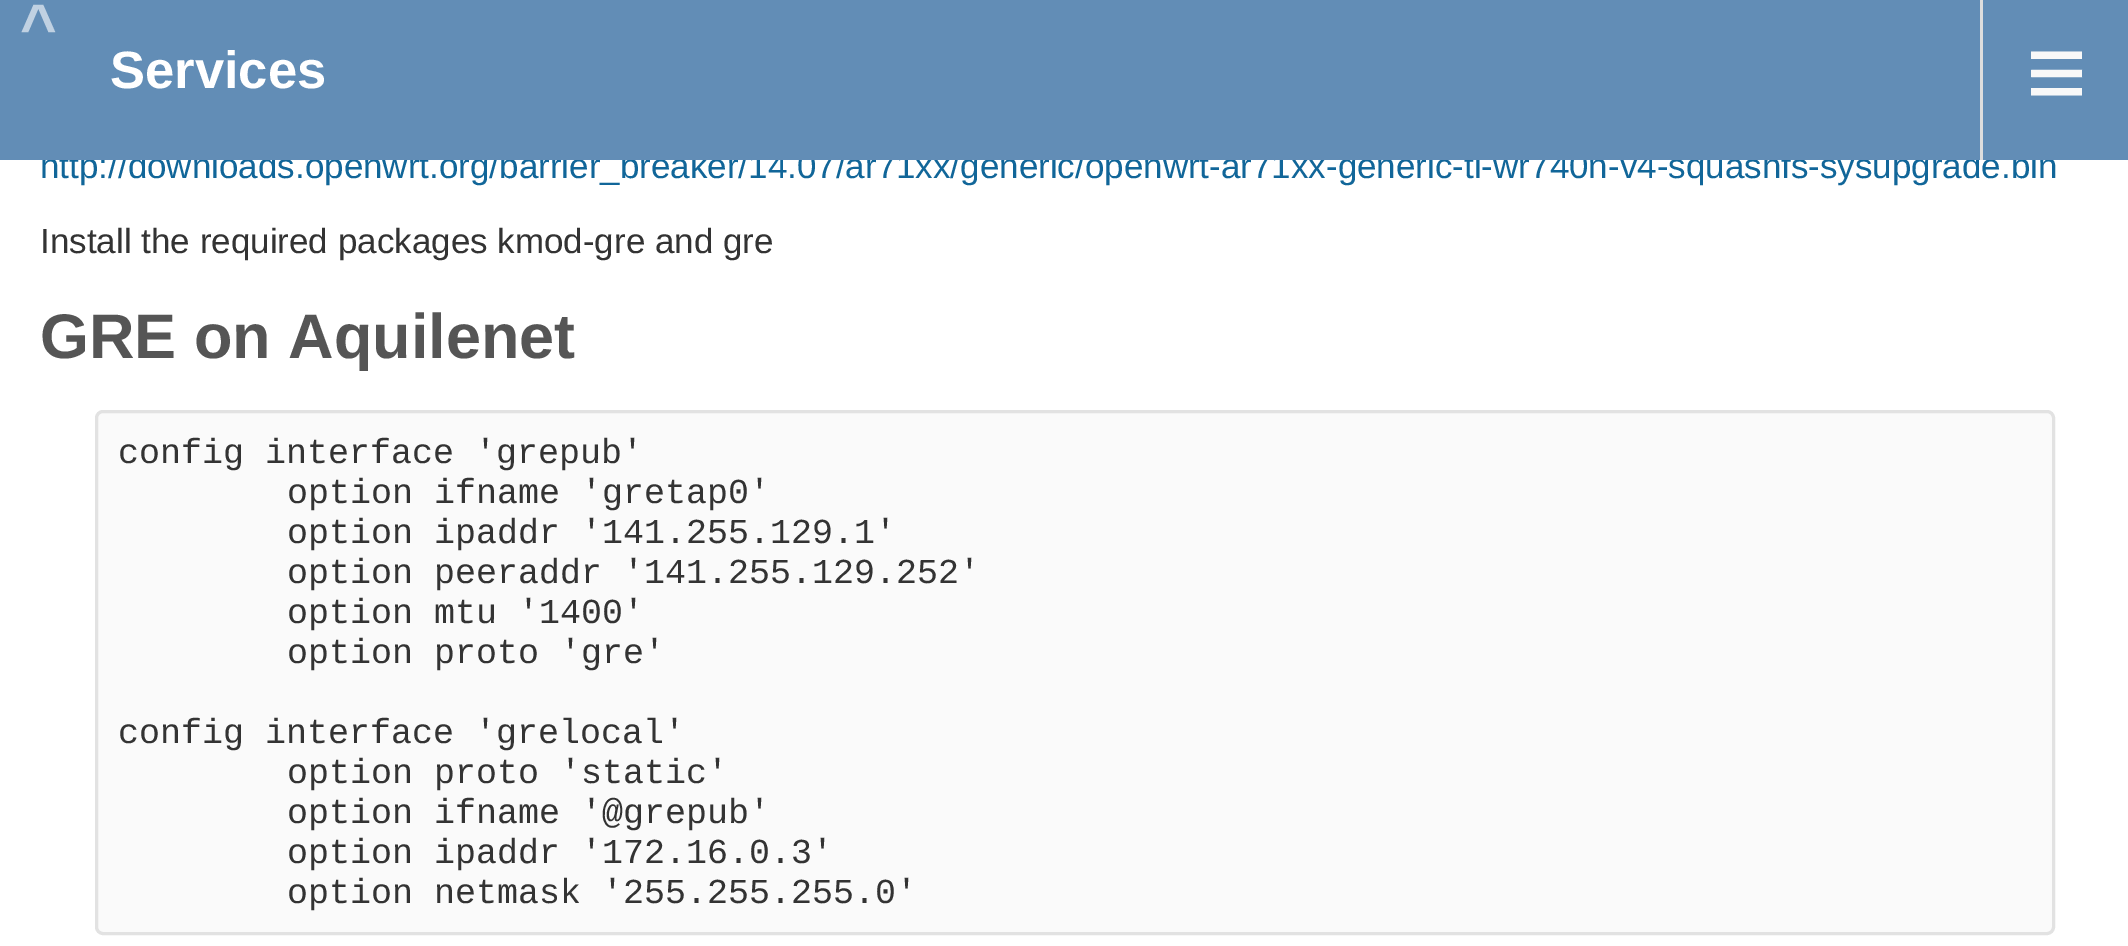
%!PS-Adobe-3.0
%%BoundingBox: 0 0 2128 946
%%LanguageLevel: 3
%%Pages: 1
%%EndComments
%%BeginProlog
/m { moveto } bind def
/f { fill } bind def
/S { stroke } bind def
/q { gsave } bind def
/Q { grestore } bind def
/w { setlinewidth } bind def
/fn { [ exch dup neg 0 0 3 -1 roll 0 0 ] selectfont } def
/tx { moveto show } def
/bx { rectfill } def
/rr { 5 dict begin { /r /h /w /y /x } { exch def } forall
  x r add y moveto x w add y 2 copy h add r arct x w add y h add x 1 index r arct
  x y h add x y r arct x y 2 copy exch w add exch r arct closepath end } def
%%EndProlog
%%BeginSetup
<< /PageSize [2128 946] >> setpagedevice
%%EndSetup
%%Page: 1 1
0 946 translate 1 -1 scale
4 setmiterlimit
1 setgray
0 0 2128 946 bx
/LiberationSans-Regular 35 fn
0.067 0.4 0.6 setrgbcolor
(http://downloads.openwrt.org/barrier_breaker/14.07/ar71xx/generic/openwrt-ar71xx-generic-tl-wr740n-v4-squashfs-sysupgrade.bin) 40 178 tx
0.384 0.553 0.714 setrgbcolor
0 0 2128 160 bx
/LiberationSans-Bold 63 fn
0.753 0.82 0.886 setrgbcolor
20 48 m 9 0 (^) ashow
/LiberationSans-Bold 52.5 fn
1 setgray
(Services) 110 88 tx
0.867 setgray
1980 0 3 160 bx
/LiberationSans-Regular 105 fn
0.973 setgray
(≡) 2026 108 tx
/LiberationSans-Regular 35 fn
0.2 setgray
(Install the required packages kmod-gre and gre) 40 253 tx
/LiberationSans-Bold 63 fn
0.333 setgray
(GRE on Aquilenet) 40 358 tx
0.98 setgray
96.5 411.5 1957 522 6.5 rr q f Q
0.886 setgray
3 w
S
/LiberationMono-Regular 35 fn
0.2 setgray
(config interface 'grepub') 118 463 tx
(option ifname 'gretap0') 287 503 tx
(option ipaddr '141.255.129.1') 287 543 tx
(option peeraddr '141.255.129.252') 287 583 tx
(option mtu '1400') 287 623 tx
(option proto 'gre') 287 663 tx
(config interface 'grelocal') 118 743 tx
(option proto 'static') 287 783 tx
(option ifname '@grepub') 287 823 tx
(option ipaddr '172.16.0.3') 287 863 tx
(option netmask '255.255.255.0') 287 903 tx
showpage
%%EOF
